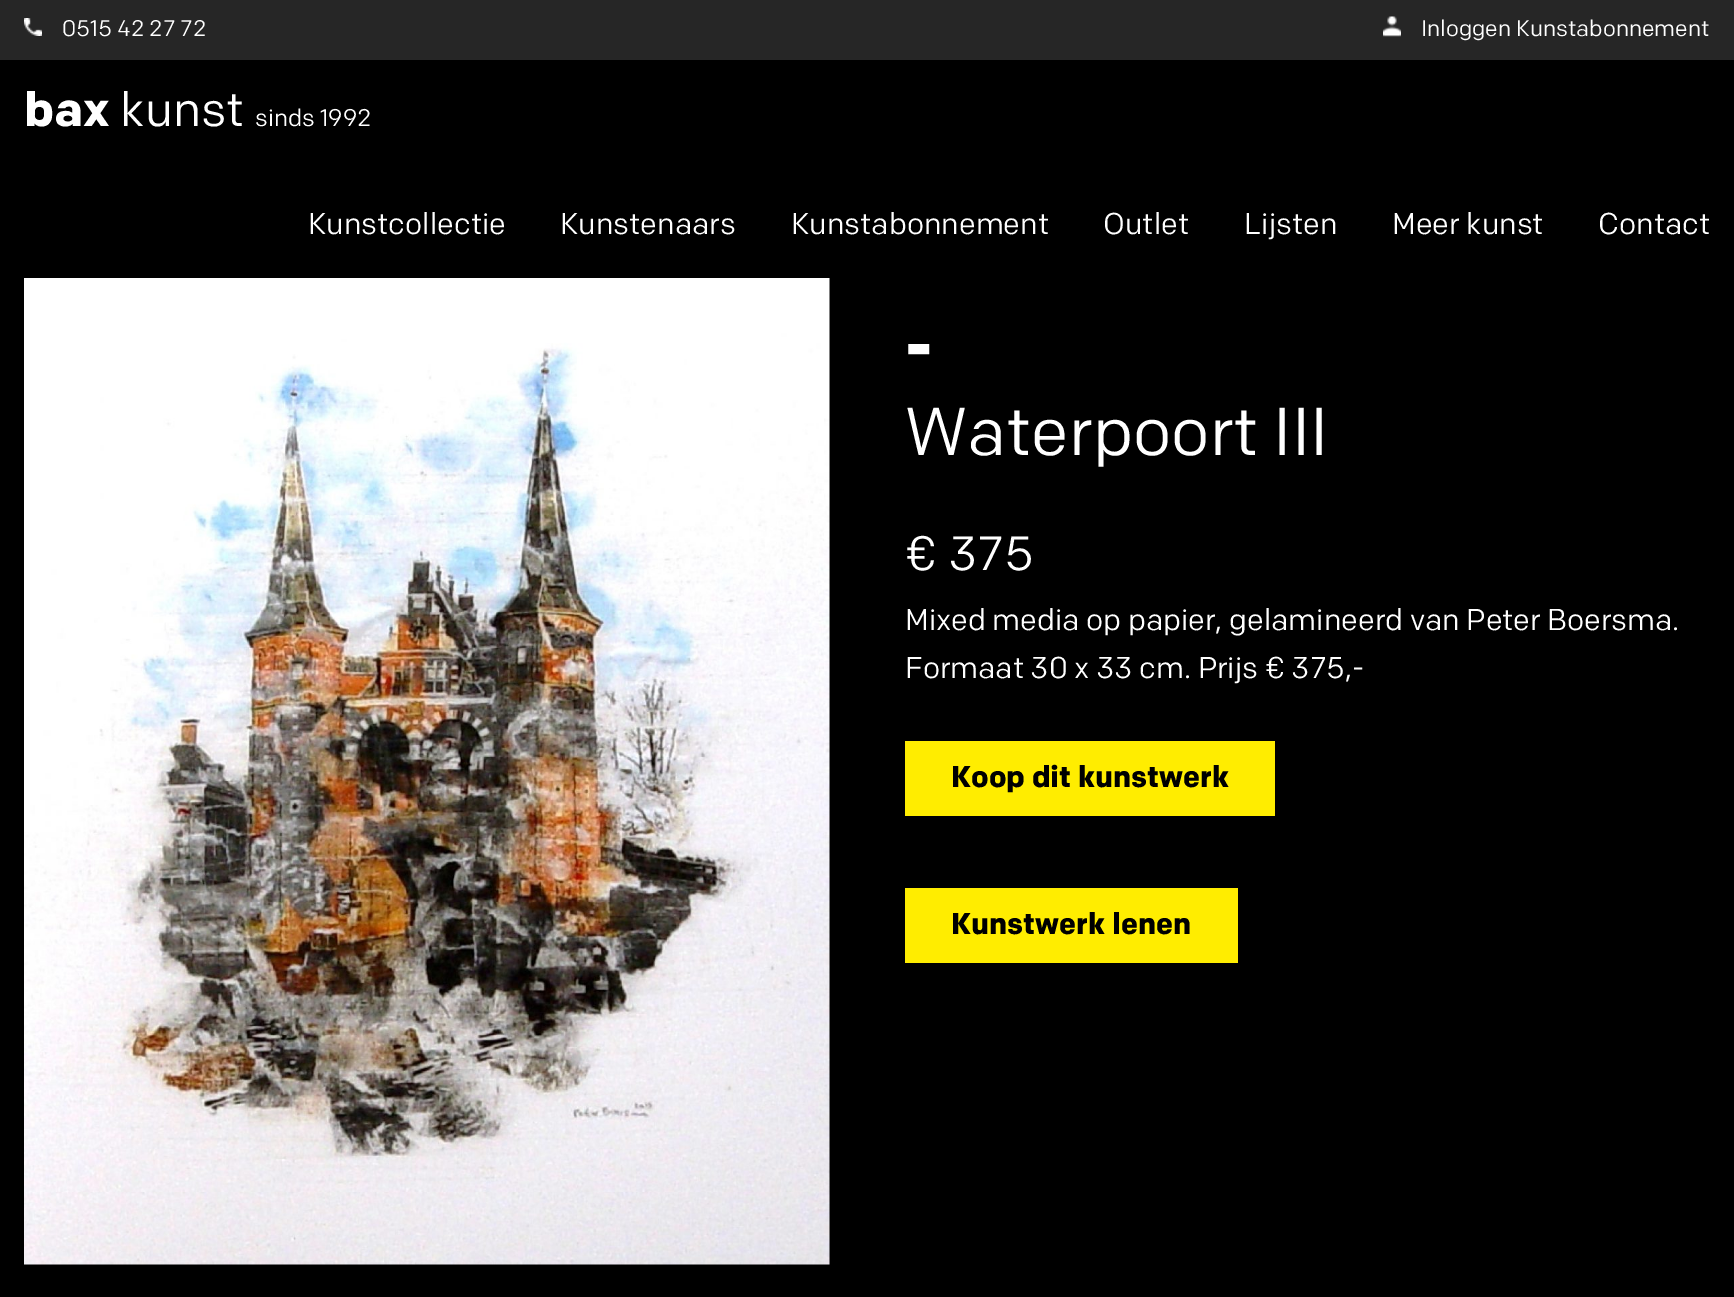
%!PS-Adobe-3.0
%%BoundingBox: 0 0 1734 1297
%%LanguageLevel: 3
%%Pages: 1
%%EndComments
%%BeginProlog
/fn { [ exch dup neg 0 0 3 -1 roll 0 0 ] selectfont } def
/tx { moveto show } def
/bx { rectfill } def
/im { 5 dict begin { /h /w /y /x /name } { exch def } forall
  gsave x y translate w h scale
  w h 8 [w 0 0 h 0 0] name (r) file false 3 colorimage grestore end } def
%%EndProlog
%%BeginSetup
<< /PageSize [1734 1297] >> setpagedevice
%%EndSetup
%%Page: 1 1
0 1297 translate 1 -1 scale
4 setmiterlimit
0 setgray
0 0 1734 1297 bx
0.149 setgray
0 0 1734 60 bx
(image0.raw) 24 18 18 18 im
/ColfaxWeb-Regular 22.5 fn
1 setgray
(0515 42 27 72) 62 36 tx
(image1.raw) 1383 16 18 21 im
(Inloggen Kunstabonnement) 1421 36 tx
/ColfaxWeb-Bold 48 fn
(bax) 24 126 tx
/ColfaxWeb-Regular 48 fn
(kunst) 120 126 tx
/ColfaxWeb-Regular 24 fn
(sinds 1992) 255 126 tx
/ColfaxWeb-Regular 30 fn
(Kunstcollectie) 308 234 tx
(Kunstenaars) 560 234 tx
(Kunstabonnement) 791 234 tx
(Outlet) 1103 234 tx
(Lijsten) 1244 234 tx
(Meer kunst) 1392 234 tx
(Contact) 1598 234 tx
(image2.raw) 24 278 806 987 im
/ColfaxWeb-Bold 67.5 fn
(-) 905 371 tx
/ColfaxWeb-Regular 67.5 fn
(Waterpoort III) 905 455 tx
/ColfaxWeb-Regular 48 fn
(€ 375) 905 570 tx
/ColfaxWeb-Regular 30 fn
(Mixed media op papier, gelamineerd van Peter Boersma.) 905 630 tx
(Formaat 30 x 33 cm. Prijs € 375,-) 905 678 tx
1 0.929 0 setrgbcolor
905 741 370 75 bx
/ColfaxWeb-Bold 30 fn
0 setgray
(Koop dit kunstwerk) 951 787 tx
1 0.929 0 setrgbcolor
905 888 333 75 bx
0 setgray
(Kunstwerk lenen) 951 934 tx
showpage
%%EOF
